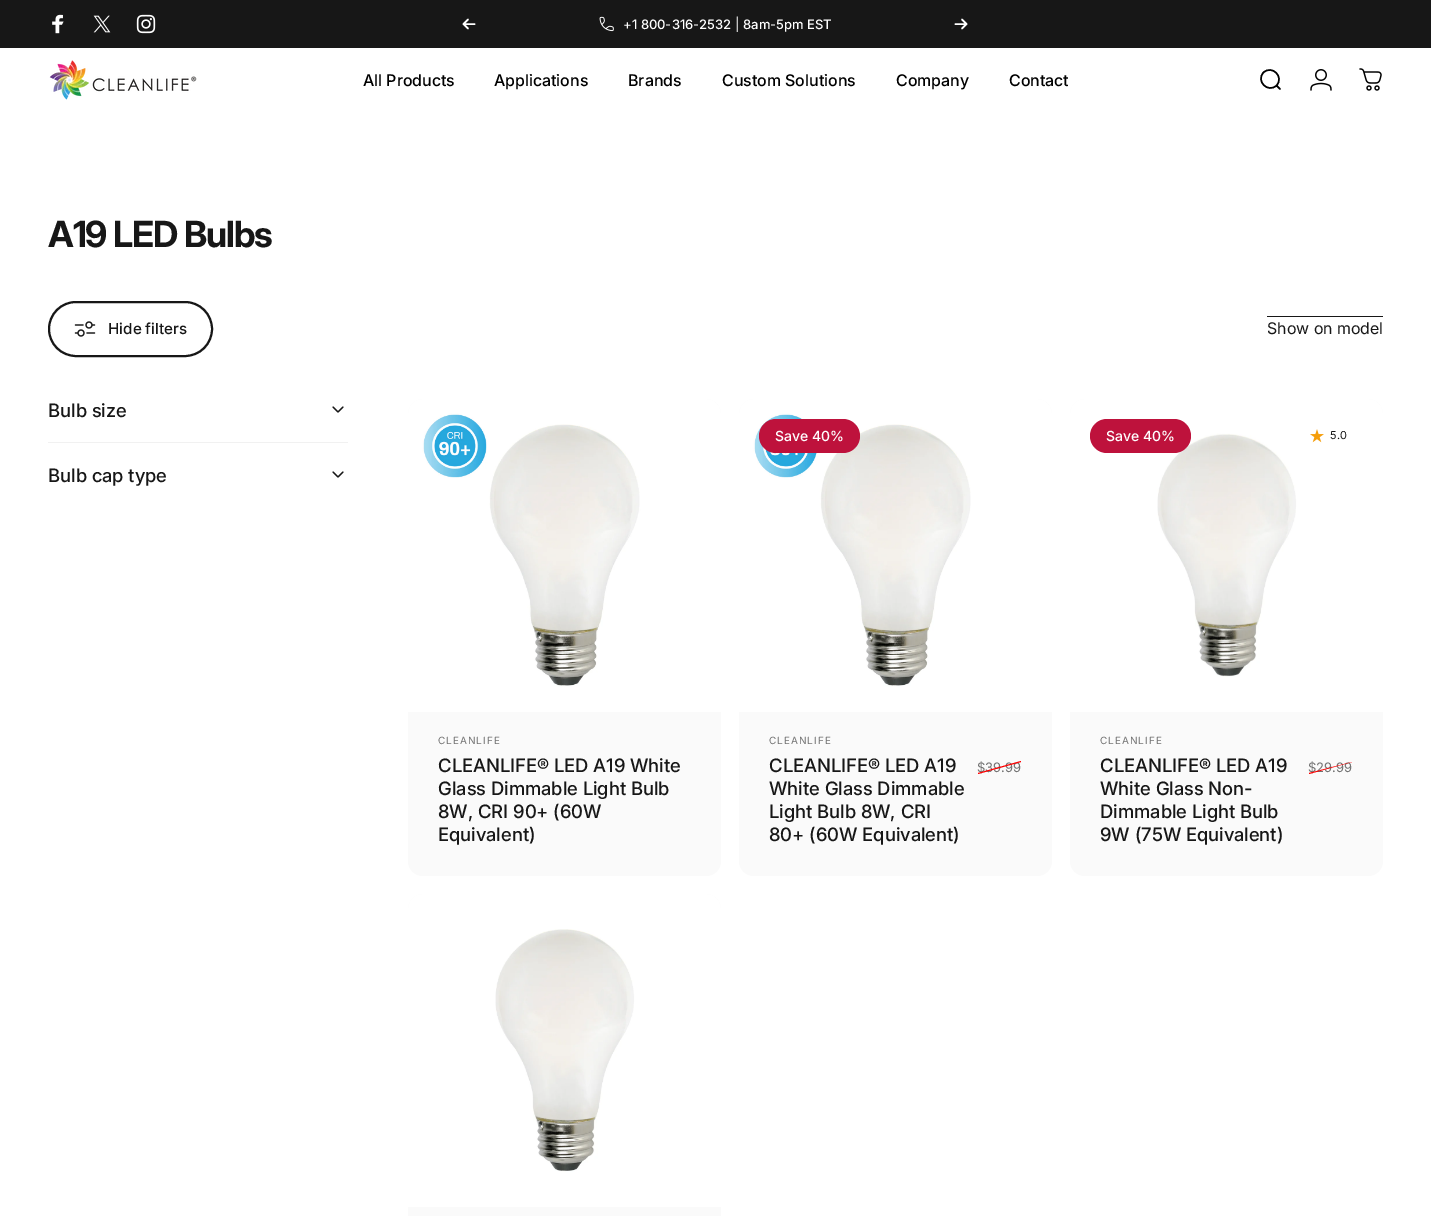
%!PS-Adobe-3.0
%%BoundingBox: 0 0 1431 1216
%%LanguageLevel: 3
%%Pages: 1
%%EndComments
%%BeginProlog
/m { moveto } bind def
/l { lineto } bind def
/c { curveto } bind def
/h { closepath } bind def
/f { fill } bind def
/S { stroke } bind def
/w { setlinewidth } bind def
/fn { [ exch dup neg 0 0 3 -1 roll 0 0 ] selectfont } def
/tx { moveto show } def
/bx { rectfill } def
/rr { 5 dict begin { /r /h /w /y /x } { exch def } forall
  x r add y moveto x w add y 2 copy h add r arct x w add y h add x 1 index r arct
  x y h add x y r arct x y 2 copy exch w add exch r arct closepath end } def
/im { 5 dict begin { /h /w /y /x /name } { exch def } forall
  gsave x y translate w h scale
  w h 8 [w 0 0 h 0 0] name (r) file false 3 colorimage grestore end } def
%%EndProlog
%%BeginSetup
<< /PageSize [1431 1216] >> setpagedevice
%%EndSetup
%%Page: 1 1
0 1216 translate 1 -1 scale
4 setmiterlimit
1 setgray
0 0 1431 1216 bx
0.09 setgray
0 0 1431 48 bx
(image0.raw) 52 14 12 20 im
(image1.raw) 93 15 18 18 im
(image2.raw) 136 14 20 20 im
1 setgray
1.6 w
1 setlinecap
1 setlinejoin
468 19.5 m 463.5 24 l 463.5 24 m 468 28.5 l 463.5 24 m 474.5 24 l S
(image3.raw) 599 16 15 16 im
/Inter-Medium 13 fn
(+1 800-316-2532) 623 29 tx
/Inter-Regular 13 fn
(|) 735 29 tx
/Inter-Medium 13 fn
(8am-5pm EST) 743 29 tx
955.5 24 m 966.5 24 l 966.5 24 m 962 19.5 l 966.5 24 m 962 28.5 l S
(image4.raw) 49 60 148 40 im
/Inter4-Medium 16 fn
0 setgray
(All Products) 363 86 tx
(Applications) 494 86 tx
(Brands) 628 86 tx
(Custom Solutions) 722 86 tx
(Company) 896 86 tx
(Contact) 1009 86 tx
1.5 w
0 setlinejoin
1280 89 m 1276.5 85.5 l 1276.5 85.5 m 1284.5 77 1272 64.5 1263.5 72.5 c 1255.5 81 1268 93.5 1276.5 85.5 c h S
(image5.raw) 1310 69 22 22 im
(image6.raw) 1359 68 23 23 im
/Inter-Bold 36 fn
0.09 setgray
48 247 m -1.1 0 (A19 LED Bulbs) ashow
2 w
0 setlinecap
49 302 163 54 27 rr S
(image7.raw) 74 321 22 16 im
/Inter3-Medium 15.25 fn
(Hide filters) 108 334 tx
1267 316 116 1 bx
/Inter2-Regular 16 fn
(Show on model) 1267 334 tx
0.945 setgray
48 442 300 1 bx
/Inter2-Medium 18.5 fn
0.09 setgray
(Bulb size) 48 417 tx
1.2 w
1 setlinecap
1 setlinejoin
333 407 m 338 412 l 343 407 l S
(Bulb cap type) 48 482 tx
333 472 m 338 477 l 343 472 l S
0.98 setgray
408 399 313 477 15 rr f
(image8.raw) 408 399 313 313 im
/Inter-Regular 10 fn
0.447 setgray
438 744 m 1 0 (CLEANLIFE) ashow
/Inter2-Medium 18.5 fn
0.09 setgray
(CLEANLIFE® LED A19 White) 438 772 tx
(Glass Dimmable Light Bulb) 438 795 tx
(8W, CRI 90+ \(60W) 438 818 tx
(Equivalent\)) 438 841 tx
0.98 setgray
739 399 313 477 15 rr f
(image9.raw) 739 399 313 313 im
0.745 0.071 0.235 setrgbcolor
759 419 101 34 17 rr f
/Inter-Medium 14 fn
1 setgray
(Save 40%) 775 441 tx
/Inter-Regular 10 fn
0.447 setgray
769 744 m 1 0 (CLEANLIFE) ashow
/Inter2-Medium 18.5 fn
0.09 setgray
(CLEANLIFE® LED A19) 769 772 tx
(White Glass Dimmable) 769 795 tx
(Light Bulb 8W, CRI) 769 818 tx
(80+ \(60W Equivalent\)) 769 841 tx
/Inter-Regular 13 fn
0.447 setgray
($39.99) 977 772 tx
1 0 0 setrgbcolor
978 773 m 1021 761 l 1021 762 l 978 774 l h f
0.98 setgray
1070 399 313 477 15 rr f
(image10.raw) 1070 399 313 313 im
0.745 0.071 0.235 setrgbcolor
1090 419 101 34 17 rr f
/Inter-Medium 14 fn
1 setgray
(Save 40%) 1106 441 tx
(image11.raw) 1310 429 14 14 im
/Inter-Regular 11 fn
0.09 setgray
(5.0) 1330 439 tx
/Inter-Regular 10 fn
0.447 setgray
1100 744 m 1 0 (CLEANLIFE) ashow
/Inter2-Medium 18.5 fn
0.09 setgray
(CLEANLIFE® LED A19) 1100 772 tx
(White Glass Non-) 1100 795 tx
(Dimmable Light Bulb) 1100 818 tx
(9W \(75W Equivalent\)) 1100 841 tx
/Inter-Regular 13 fn
0.447 setgray
($29.99) 1308 772 tx
1 0 0 setrgbcolor
1309 773 m 1352 762 l 1309 774 l h f
0.98 setgray
408 894 313 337 15 rr f
(image12.raw) 408 894 313 313 im
showpage
%%EOF
